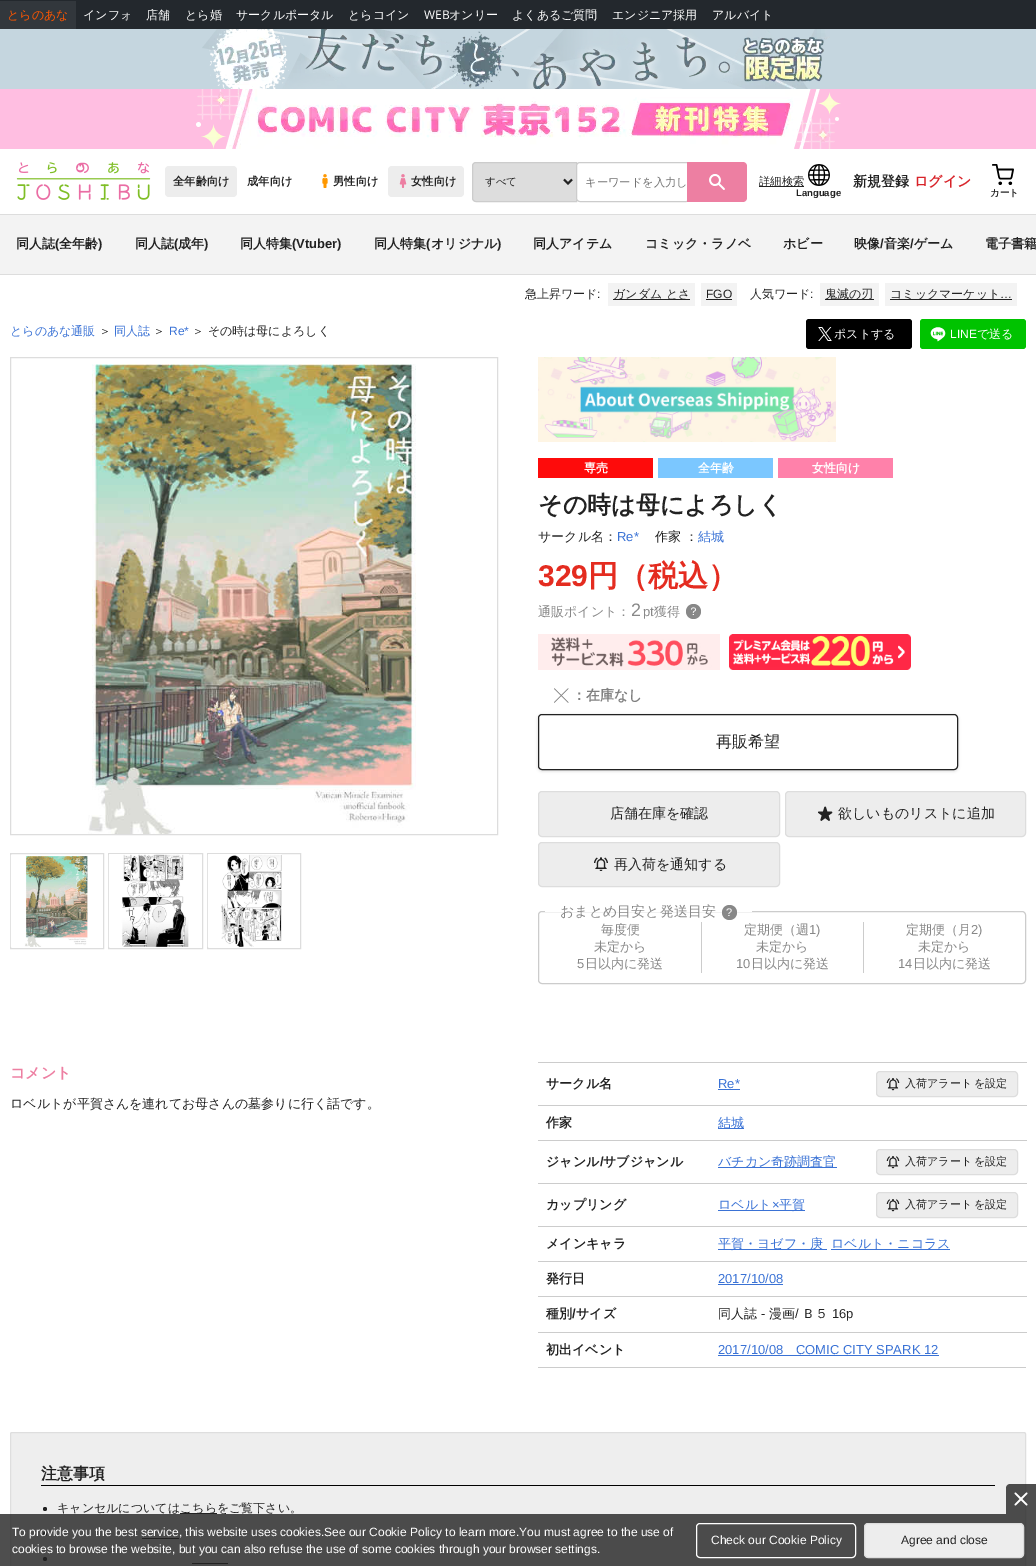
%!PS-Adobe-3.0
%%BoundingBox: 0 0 1036 1566
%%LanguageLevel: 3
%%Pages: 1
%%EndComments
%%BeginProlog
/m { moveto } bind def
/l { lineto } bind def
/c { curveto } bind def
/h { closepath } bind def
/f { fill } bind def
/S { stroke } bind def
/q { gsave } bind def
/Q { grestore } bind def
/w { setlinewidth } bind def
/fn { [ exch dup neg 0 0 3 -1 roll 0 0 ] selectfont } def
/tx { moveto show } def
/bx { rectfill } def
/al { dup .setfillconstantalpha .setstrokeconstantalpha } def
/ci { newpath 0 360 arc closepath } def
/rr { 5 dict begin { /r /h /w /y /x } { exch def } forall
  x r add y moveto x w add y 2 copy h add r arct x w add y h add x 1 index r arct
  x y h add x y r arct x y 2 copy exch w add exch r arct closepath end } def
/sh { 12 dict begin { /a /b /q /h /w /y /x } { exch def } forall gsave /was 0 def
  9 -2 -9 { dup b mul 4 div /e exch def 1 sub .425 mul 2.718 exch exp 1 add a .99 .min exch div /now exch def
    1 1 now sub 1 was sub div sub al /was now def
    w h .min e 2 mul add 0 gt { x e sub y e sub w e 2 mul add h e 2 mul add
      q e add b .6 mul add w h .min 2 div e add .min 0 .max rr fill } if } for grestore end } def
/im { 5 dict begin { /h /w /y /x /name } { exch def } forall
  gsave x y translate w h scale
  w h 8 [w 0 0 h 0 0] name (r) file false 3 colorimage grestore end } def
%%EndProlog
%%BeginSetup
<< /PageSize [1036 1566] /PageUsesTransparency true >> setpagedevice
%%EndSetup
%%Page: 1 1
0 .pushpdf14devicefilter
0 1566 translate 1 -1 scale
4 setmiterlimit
1 setgray
0 0 1036 1566 bx
0.137 0.157 0.176 setrgbcolor
0 0 1036 29 bx
0.196 0.216 0.235 setrgbcolor
0 1 76 28 bx
/WenQuanYiZenHei-Medium 12 fn
1 0.337 0 setrgbcolor
(とらのあな) 7 19 tx
1 setgray
(インフォ) 83 19 tx
(店舗) 146 19 tx
(とら婚) 185 19 tx
(サークルポータル) 236 19 tx
(とらコイン) 348 19 tx
/OpenSans-Regular 12 fn
(WEB) 424 19 tx
/WenQuanYiZenHei-Medium 12 fn
(オンリー) 449 19 tx
(よくあるご質問) 512 19 tx
(エンジニア採用) 612 19 tx
(アルバイト) 712 19 tx
0.773 0.839 0.875 setrgbcolor
0 29 1036 60 bx
(image0.raw) 202 29 628 60 im
1 0.745 0.882 setrgbcolor
0 89 1036 60 bx
(image1.raw) 196 89 645 60 im
0.867 setgray
0 214 1036 1 bx
(image2.raw) 16 162 135 38 im
0.929 setgray
165 166 72 31 4 rr f
/WenQuanYiZenHei-Bold 11.25 fn
0.133 setgray
(全年齢向け) 173 185 tx
(成年向け) 247 185 tx
(image3.raw) 322 174 6 14 im
(男性向け) 333 185 tx
0.929 setgray
388 166 76 31 4 rr f
(image4.raw) 399 174 8 14 im
0.133 setgray
(女性向け) 411 185 tx
0.867 setgray
476 162.5 m 576.5 162.5 l 576.5 201.5 l 476 201.5 l 474 201.5 472.5 200 472.5 198 c 472.5 166 l 472.5 164 474 162.5 476 162.5 c h q f Q
0.8 setgray
S
0.133 setgray
2 w
564 179.5 m 568 183.5 l 572 179.5 l S
/WenQuanYiZenHei-Medium 10.5 fn
(すべて) 485 185 tx
1 setgray
576.5 162.5 113 39 3.5 rr q f Q
0.8 setgray
1 w
S
/WenQuanYiZenHei-Medium 11.25 fn
0.451 setgray
(キーワードを入力し) 585 186 tx
0.929 0.498 0.635 setrgbcolor
687 162 m 743 162 l 745 162 747 164 747 166 c 747 198 l 747 200 745 202 743 202 c 687 202 l h f
(image5.raw) 709 174 16 16 im
0.133 setgray
759 186 45 1 bx
(詳細検索) 759 185 tx
/WenQuanYiZenHei-Bold 14 fn
(新規登録) 853 186 tx
0.847 0.137 0.161 setrgbcolor
(ログイン) 914 186 tx
(image6.raw) 808 164 22 22 im
/LiberationSans-Bold 9.5 fn
0.133 setgray
(Language) 796 196 tx
(image7.raw) 992 164 22 21 im
/WenQuanYiZenHei-Bold 9.5 fn
(カート) 990 196 tx
0.953 setgray
0 215 1036 59 bx
0.867 setgray
0 274 1036 1 bx
/WenQuanYiZenHei-Bold 13 fn
0.133 setgray
(同人誌) 16 248 tx
/LiberationSans-Bold 13 fn
(\() 55 248 tx
/WenQuanYiZenHei-Bold 13 fn
(全年齢) 59 248 tx
/LiberationSans-Bold 13 fn
(\)) 98 248 tx
/WenQuanYiZenHei-Bold 13 fn
(同人誌) 135 248 tx
/LiberationSans-Bold 13 fn
(\() 174 248 tx
/WenQuanYiZenHei-Bold 13 fn
(成年) 178 248 tx
/LiberationSans-Bold 13 fn
(\)) 204 248 tx
/WenQuanYiZenHei-Bold 13 fn
(同人特集) 240 248 tx
/LiberationSans-Bold 13 fn
(\(Vtuber\)) 292 248 tx
/WenQuanYiZenHei-Bold 13 fn
(同人特集) 374 248 tx
/LiberationSans-Bold 13 fn
(\() 426 248 tx
/WenQuanYiZenHei-Bold 13 fn
(オリジナル) 431 248 tx
/LiberationSans-Bold 13 fn
(\)) 497 248 tx
/WenQuanYiZenHei-Bold 13 fn
(同人アイテム) 533 248 tx
(コミック・ラノベ) 645 248 tx
(ホビー) 783 248 tx
(映像 音楽) 854 248 tx
/LiberationSans-Bold 13 fn
(/) 910 248 tx
/WenQuanYiZenHei-Bold 13 fn
(ゲーム) 914 248 tx
/LiberationSans-Bold 13 fn
(/) 880 248 tx
/WenQuanYiZenHei-Bold 13 fn
(電子書籍) 985 248 tx
/WenQuanYiZenHei-Medium 12 fn
(急上昇ワード) 525 298 tx
/LiberationSans-Regular 12 fn
(:) 597 298 tx
0.953 setgray
608 283 87 23 bx
0.133 setgray
613 299 77 1 bx
/WenQuanYiZenHei-Medium 12 fn
(ガンダム とさ) 613 298 tx
0.953 setgray
701 283 36 23 bx
/LiberationSans-Regular 12 fn
0.133 setgray
(FGO) 706 298 tx
706 299 26 1 bx
/WenQuanYiZenHei-Medium 12 fn
(人気ワード) 750 298 tx
/LiberationSans-Regular 12 fn
(:) 810 298 tx
0.953 setgray
820 283 59 23 bx
0.133 setgray
825 299 49 1 bx
/WenQuanYiZenHei-Medium 12 fn
(鬼滅の刃) 825 298 tx
0.953 setgray
885 283 132 23 bx
0.133 setgray
890 299 122 1 bx
(コミックマーケット) 890 298 tx
/LiberationSans-Regular 12 fn
(…) 1000 298 tx
0.933 setgray
10.5 1432.5 1015 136 1.5 rr q f Q
0.871 setgray
S
0.133 setgray
45 1534 2 ci f
142 1538 37 1 bx
45 1559 2 ci f
192 1563 36 1 bx
0.8 al
0 1514 1036 52 bx
1010 1484 m 1036 1484 l 1036 1514 l 1006 1514 l 1006 1488 l 1006 1486 1008 1484 1010 1484 c h f
1 al
(image8.raw) 1014 1492 14 14 im
1 setgray
(To provide you the best service, this website uses cookies.See our Cookie Policy to learn more.You must agree to the use of) 12 1536 tx
(cookies to browse the website, but you can also refuse the use of some cookies through your browser settings.) 12 1553 tx
696.5 1523.5 159 34 3.5 rr S
(Check our Cookie Policy) 711 1544 tx
0.929 setgray
864.5 1523.5 159 34 3.5 rr q f Q
0.867 setgray
S
0.133 setgray
(Agree and close) 901 1544 tx
/WenQuanYiZenHei-Medium 12 fn
0.227 0.447 0.835 setrgbcolor
(とらのあな通販) 10 335 tx
0.133 setgray
(＞) 99 335 tx
0.227 0.447 0.835 setrgbcolor
(同人誌) 114 335 tx
0.133 setgray
(＞) 153 335 tx
/LiberationSans-Regular 12 fn
0.227 0.447 0.835 setrgbcolor
(Re*) 169 335 tx
/WenQuanYiZenHei-Medium 12 fn
0.133 setgray
(＞ その時は母によろしく) 192 335 tx
0 setgray
806 319 106 30 3 rr f
(image9.raw) 818 327 14 14 im
1 setgray
(ポストする) 834 338 tx
0 0.765 0 setrgbcolor
920 319 106 30 3 rr f
(image10.raw) 930 327 16 15 im
/LiberationSans-Regular 12 fn
1 setgray
(LINE) 950 338 tx
/WenQuanYiZenHei-Medium 12 fn
(で送る) 977 338 tx
0.867 setgray
10.5 357.5 487 477 rectstroke
(image11.raw) 88 364 328 470 im
10.5 853.5 93 95 rectstroke
(image12.raw) 10 855 78 92 im
108.5 853.5 94 95 rectstroke
(image13.raw) 108 854 81 93 im
207.5 853.5 93 95 rectstroke
(image14.raw) 207 854 75 93 im
(image15.raw) 538 357 298 85 im
0.996 0.043 0.043 setrgbcolor
538 458 115 20 bx
/WenQuanYiZenHei-Bold 12 fn
1 setgray
(専売) 584 472 tx
0.482 0.78 1 setrgbcolor
658 458 115 20 bx
1 setgray
(全年齢) 698 472 tx
1 0.506 0.667 setrgbcolor
778 458 115 20 bx
1 setgray
(女性向け) 812 472 tx
/WenQuanYiZenHei-Bold 24 fn
0.133 setgray
(その時は母によろしく) 538 513 tx
/WenQuanYiZenHei-Medium 13 fn
(サークル名：) 538 541 tx
/LiberationSans-Regular 13 fn
0.227 0.447 0.835 setrgbcolor
(Re*) 617 541 tx
/WenQuanYiZenHei-Medium 13 fn
0.133 setgray
(作家 ：) 655 541 tx
0.227 0.447 0.835 setrgbcolor
(結城) 698 541 tx
/LiberationSans-Bold 30 fn
0.894 0.173 0.125 setrgbcolor
(329) 538 586 tx
/WenQuanYiZenHei-Bold 30 fn
(円（税込）) 588 586 tx
/WenQuanYiZenHei-Medium 13 fn
0.533 setgray
(通販ポイント：) 538 616 tx
/LiberationSans-Regular 18 fn
(2) 631 616 tx
/LiberationSans-Regular 13 fn
(pt) 643 616 tx
/WenQuanYiZenHei-Medium 13 fn
(獲得) 654 616 tx
693.5 611.5 7.5 ci f
/WenQuanYiZenHei-Medium 11 fn
1 setgray
(？) 688 615 tx
(image16.raw) 538 634 182 36 im
(image17.raw) 729 634 182 36 im
/WenQuanYiZenHei-Bold 14 fn
0.502 setgray
(╳) 554 700 tx
(：在庫なし) 572 700 tx
0 setgray
538 715 420 56 4 1.5 0.15 sh
1 setgray
538.5 714.5 419 55 3.5 rr q f Q
0.133 setgray
S
/WenQuanYiZenHei-Medium 16 fn
(再販希望) 716 747 tx
0.929 setgray
538.5 791.5 241 45 3.5 rr q f Q
0.867 setgray
S
/WenQuanYiZenHei-Medium 14 fn
0.133 setgray
(店舗在庫を確認) 610 818 tx
0.929 setgray
785.5 791.5 240 45 3.5 rr q f Q
0.867 setgray
S
(image18.raw) 818 806 15 15 im
0.133 setgray
(欲しいものリストに追加) 838 818 tx
0.929 setgray
538.5 842.5 241 44 3.5 rr q f Q
0.867 setgray
S
(image19.raw) 594 857 14 14 im
0.133 setgray
(再入荷を通知する) 614 869 tx
0.8 setgray
538.5 911.5 487 72 3.5 rr S
1 setgray
545 911 207 1 bx
0.533 setgray
(おまとめ目安と発送目安) 560 916 tx
729.5 912.5 7.5 ci f
/LiberationSans-Regular 11 fn
1 setgray
(?) 726 916 tx
/WenQuanYiZenHei-Medium 13 fn
0.533 setgray
(毎度便) 601 934 tx
(未定から) 594 951 tx
/LiberationSans-Regular 13 fn
(5) 577 968 tx
/WenQuanYiZenHei-Medium 13 fn
(日以内に発送) 585 968 tx
0.8 setgray
701 922 1 51 bx
0.533 setgray
(定期便（週) 744 934 tx
/LiberationSans-Regular 13 fn
(1\)) 809 934 tx
/WenQuanYiZenHei-Medium 13 fn
(未定から) 756 951 tx
/LiberationSans-Regular 13 fn
(10) 736 968 tx
/WenQuanYiZenHei-Medium 13 fn
(日以内に発送) 751 968 tx
0.8 setgray
863 922 1 51 bx
0.533 setgray
(定期便（月) 906 934 tx
/LiberationSans-Regular 13 fn
(2\)) 971 934 tx
/WenQuanYiZenHei-Medium 13 fn
(未定から) 918 951 tx
/LiberationSans-Regular 13 fn
(14) 898 968 tx
/WenQuanYiZenHei-Medium 13 fn
(日以内に発送) 913 968 tx
/WenQuanYiZenHei-Bold 15 fn
0.929 0.498 0.635 setrgbcolor
(コメント) 10 1078 tx
/WenQuanYiZenHei-Medium 13 fn
0.133 setgray
(ロベルトが平賀さんを連れてお母さんの墓参りに行く話です。) 10 1108 tx
0.8 setgray
538 1367 488 1 bx
/WenQuanYiZenHei-Bold 13 fn
0.133 setgray
(サークル名) 546 1088 tx
0.8 setgray
538 1062 489 1 bx
/LiberationSans-Regular 13 fn
0.227 0.447 0.835 setrgbcolor
(Re*) 718 1088 tx
718 1089 22 1 bx
0.929 setgray
876.5 1071.5 141 25 3.5 rr q f Q
0.867 setgray
S
(image20.raw) 886 1078 14 13 im
/WenQuanYiZenHei-Medium 11 fn
0.133 setgray
(入荷アラート) 905 1087 tx
(を設定) 974 1087 tx
/WenQuanYiZenHei-Bold 13 fn
(作家) 546 1127 tx
0.8 setgray
538 1105 489 1 bx
0.227 0.447 0.835 setrgbcolor
718 1128 26 1 bx
/WenQuanYiZenHei-Medium 13 fn
(結城) 718 1127 tx
/WenQuanYiZenHei-Bold 13 fn
0.133 setgray
(ジャンル サブジャンル) 546 1166 tx
/LiberationSans-Bold 13 fn
(/) 600 1166 tx
0.8 setgray
538 1140 489 1 bx
0.227 0.447 0.835 setrgbcolor
718 1167 119 1 bx
/WenQuanYiZenHei-Medium 13 fn
(バチカン奇跡調査官) 718 1166 tx
0.929 setgray
876.5 1149.5 141 25 3.5 rr q f Q
0.867 setgray
S
(image20.raw) 886 1156 14 13 im
/WenQuanYiZenHei-Medium 11 fn
0.133 setgray
(入荷アラート) 905 1165 tx
(を設定) 974 1165 tx
/WenQuanYiZenHei-Bold 13 fn
(カップリング) 546 1209 tx
0.8 setgray
538 1183 489 1 bx
0.227 0.447 0.835 setrgbcolor
718 1210 87 1 bx
/WenQuanYiZenHei-Medium 13 fn
(ロベルト) 718 1209 tx
/LiberationSans-Regular 13 fn
(×) 772 1209 tx
/WenQuanYiZenHei-Medium 13 fn
(平賀) 779 1209 tx
0.929 setgray
876.5 1192.5 141 25 3.5 rr q f Q
0.867 setgray
S
(image20.raw) 886 1199 14 13 im
/WenQuanYiZenHei-Medium 11 fn
0.133 setgray
(入荷アラート) 905 1208 tx
(を設定) 974 1208 tx
/WenQuanYiZenHei-Bold 13 fn
(メインキャラ) 546 1248 tx
0.8 setgray
538 1226 489 1 bx
0.227 0.447 0.835 setrgbcolor
718 1249 109 1 bx
/WenQuanYiZenHei-Medium 13 fn
(平賀・ヨゼフ・庚) 718 1248 tx
831 1249 119 1 bx
(ロベルト・ニコラス) 831 1248 tx
/WenQuanYiZenHei-Bold 13 fn
0.133 setgray
(発行日) 546 1283 tx
0.8 setgray
538 1261 489 1 bx
/LiberationSans-Regular 13 fn
0.227 0.447 0.835 setrgbcolor
(2017/10/08) 718 1283 tx
718 1284 65 1 bx
/WenQuanYiZenHei-Bold 13 fn
0.133 setgray
(種別 サイズ) 546 1318 tx
/LiberationSans-Bold 13 fn
(/) 572 1318 tx
0.8 setgray
538 1296 489 1 bx
/WenQuanYiZenHei-Medium 13 fn
0.133 setgray
(同人誌) 718 1318 tx
/LiberationSans-Regular 13 fn
(-) 761 1318 tx
/WenQuanYiZenHei-Medium 13 fn
(漫画) 769 1318 tx
/LiberationSans-Regular 13 fn
(/) 795 1318 tx
/WenQuanYiZenHei-Medium 13 fn
(Ｂ５) 802 1318 tx
/LiberationSans-Regular 13 fn
(16p) 832 1318 tx
/WenQuanYiZenHei-Bold 13 fn
(初出イベント) 546 1354 tx
0.8 setgray
538 1332 489 1 bx
/LiberationSans-Regular 13 fn
0.227 0.447 0.835 setrgbcolor
(2017/10/08) 718 1354 tx
718 1355 221 1 bx
(COMIC CITY SPARK 12) 796 1354 tx
0 setgray
41 1485 954 1 bx
/WenQuanYiZenHei-Bold 16 fn
0.133 setgray
(注意事項) 41 1479 tx
45 1509 2 ci f
/WenQuanYiZenHei-Medium 12 fn
(キャンセルについては) 57 1512 tx
180 1513 37 1 bx
(こちらをご覧下さい。) 180 1512 tx
.poppdf14devicefilter showpage
%%EOF
